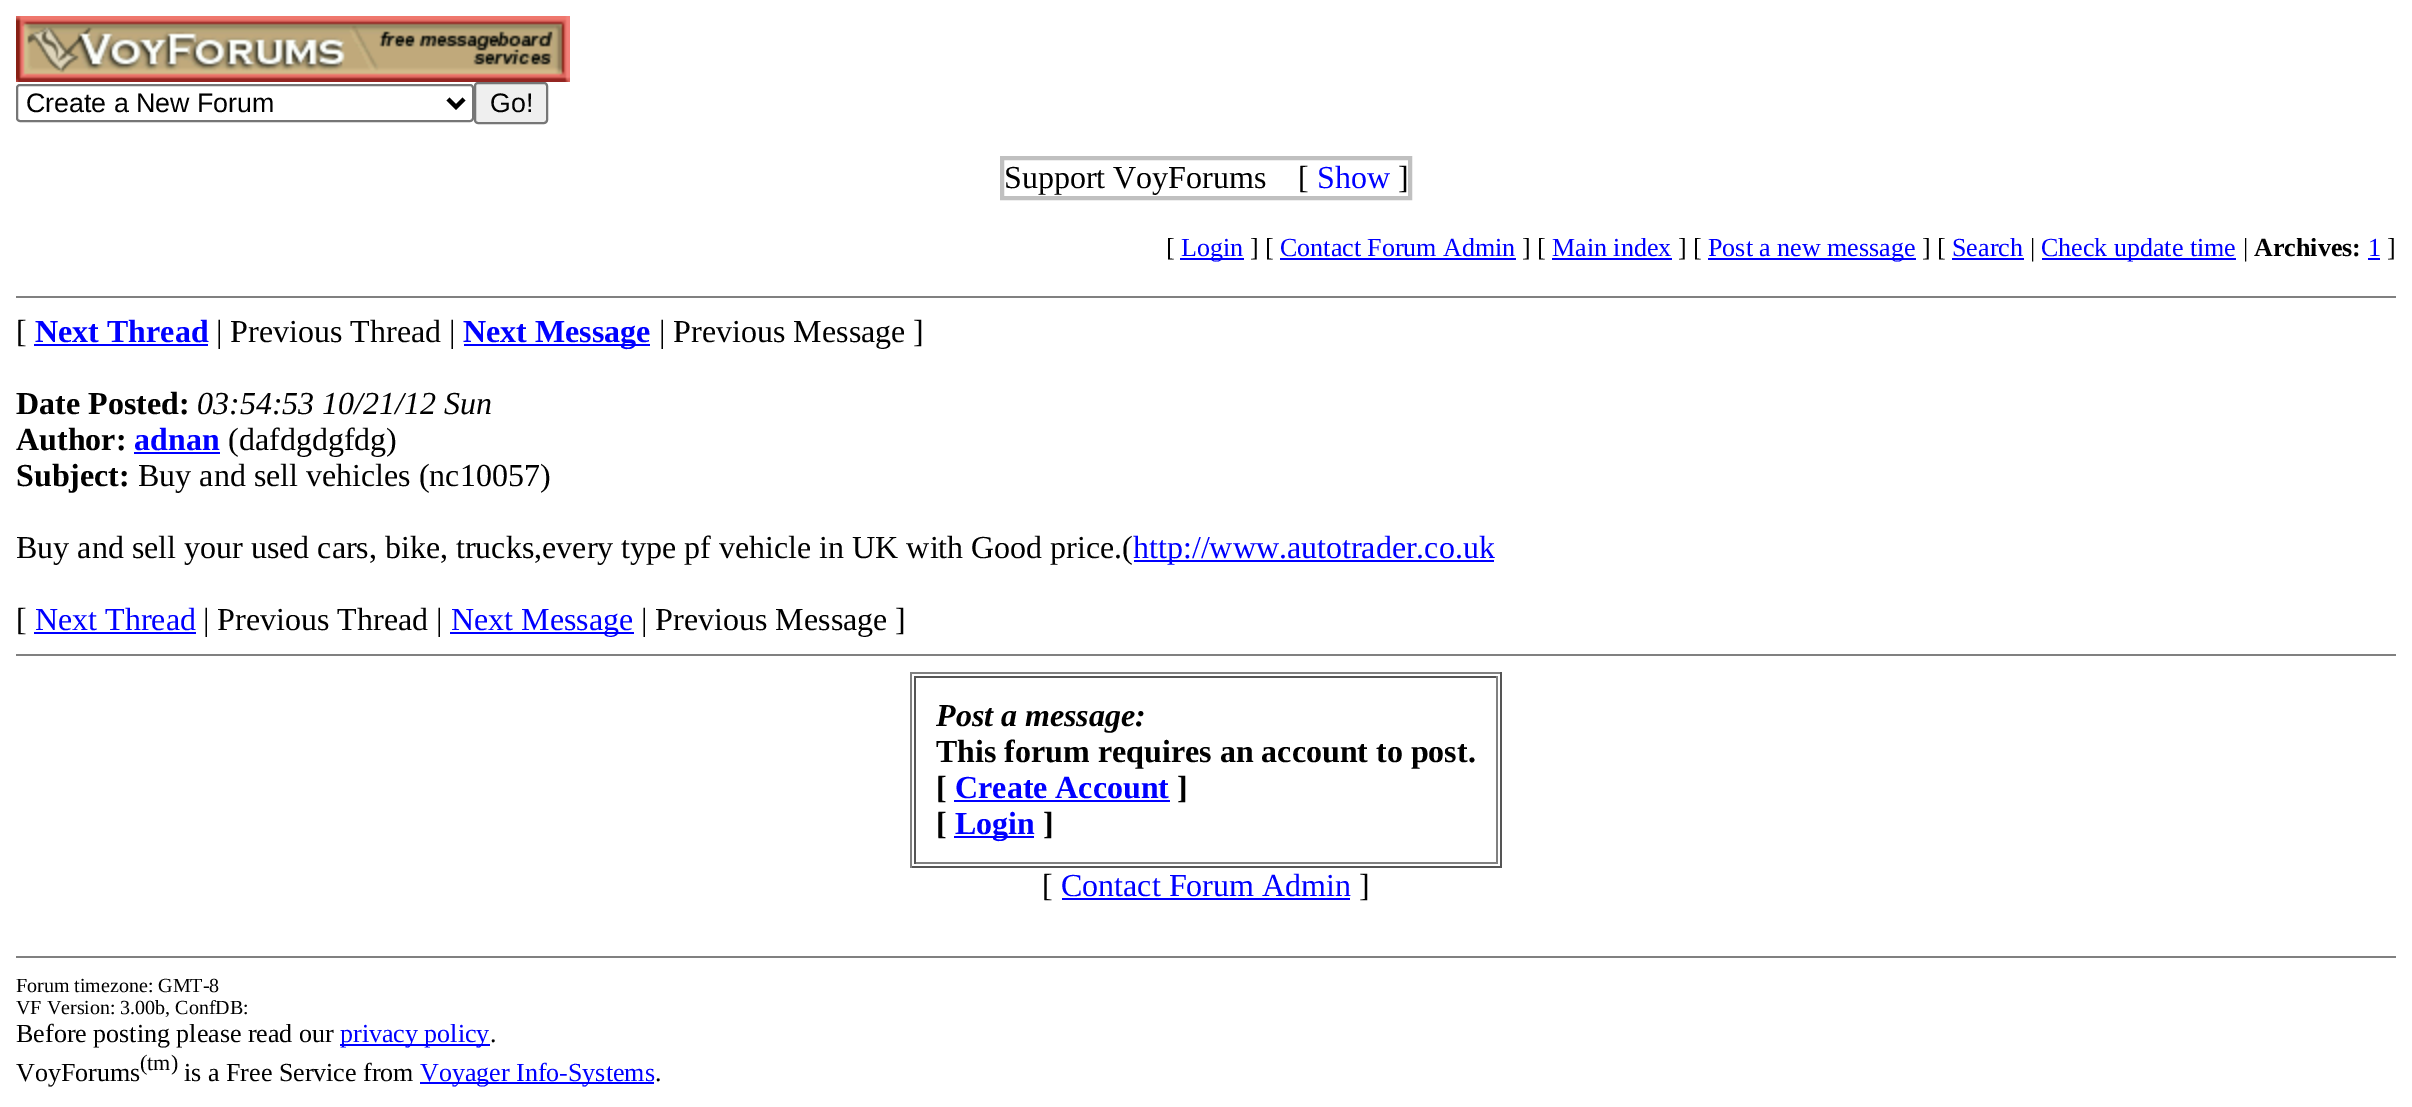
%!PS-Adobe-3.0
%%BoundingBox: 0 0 2412 1107
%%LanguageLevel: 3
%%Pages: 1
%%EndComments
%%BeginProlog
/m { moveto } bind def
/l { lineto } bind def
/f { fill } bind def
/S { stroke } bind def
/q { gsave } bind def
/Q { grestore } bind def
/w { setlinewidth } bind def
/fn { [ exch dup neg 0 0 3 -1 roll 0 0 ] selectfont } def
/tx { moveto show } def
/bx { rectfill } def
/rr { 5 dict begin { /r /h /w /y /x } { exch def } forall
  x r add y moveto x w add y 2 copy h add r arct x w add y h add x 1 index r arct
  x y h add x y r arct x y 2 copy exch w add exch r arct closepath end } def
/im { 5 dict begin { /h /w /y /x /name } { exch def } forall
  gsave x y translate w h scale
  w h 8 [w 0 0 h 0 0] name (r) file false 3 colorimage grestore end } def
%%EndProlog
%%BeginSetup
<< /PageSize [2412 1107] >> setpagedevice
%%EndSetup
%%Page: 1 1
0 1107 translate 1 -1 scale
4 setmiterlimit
1 setgray
0 0 2412 1107 bx
(image0.raw) 16 16 554 66 im
0.463 setgray
2 w
17 85 456 36 3 rr S
0 setgray
4 w
448 99 m 456 107 l 464 99 l S
/LiberationSans-Regular 26.75 fn
(Create a New Forum) 26 112 tx
0.937 setgray
475 83 72 40 3 rr q f Q
0.463 setgray
2 w
S
0 setgray
(Go!) 490 112 tx
0.753 setgray
4 w
1002 158 408 40 rectstroke
/LiberationSerif-Regular 32 fn
0 setgray
(Support VoyForums) 1004 188 tx
([) 1298 188 tx
0 0 1 setrgbcolor
(Show) 1317 188 tx
0 setgray
(]) 1398 188 tx
/LiberationSerif-Regular 26 fn
([) 1166 256 tx
0 0 1 setrgbcolor
1180 258 64 2 bx
(Login) 1181 256 tx
0 setgray
(] [) 1250 256 tx
0 0 1 setrgbcolor
(Contact Forum Admin) 1280 256 tx
1280 258 236 2 bx
0 setgray
(] [) 1522 256 tx
0 0 1 setrgbcolor
(Main index) 1552 256 tx
1552 258 120 2 bx
0 setgray
(] [) 1678 256 tx
0 0 1 setrgbcolor
1708 258 208 2 bx
(Post a new message) 1708 256 tx
0 setgray
(] [) 1922 256 tx
0 0 1 setrgbcolor
(Search) 1952 256 tx
1952 258 72 2 bx
0 setgray
(|) 2030 256 tx
0 0 1 setrgbcolor
2042 258 194 2 bx
(Check update time) 2041 256 tx
0 setgray
(|) 2243 256 tx
/LiberationSerif-Bold 26 fn
(Archives:) 2254 256 tx
/LiberationSerif-Regular 26 fn
0 0 1 setrgbcolor
(1) 2368 256 tx
2368 258 12 2 bx
0 setgray
(]) 2387 256 tx
0.502 setgray
16 296 2380 2 bx
/LiberationSerif-Regular 32 fn
0 setgray
([) 16 342 tx
/LiberationSerif-Bold 32 fn
0 0 1 setrgbcolor
(Next Thread) 35 342 tx
34 344 174 2 bx
/LiberationSerif-Regular 32 fn
0 setgray
(| Previous Thread |) 216 342 tx
0 0 1 setrgbcolor
464 344 186 2 bx
/LiberationSerif-Bold 32 fn
(Next Message) 463 342 tx
/LiberationSerif-Regular 32 fn
0 setgray
(| Previous Message ]) 659 342 tx
/LiberationSerif-Bold 32 fn
(Date Posted:) 16 414 tx
/LiberationSerif-Italic 32 fn
(03:54:53 10/21/12 Sun) 197 414 tx
/LiberationSerif-Bold 32 fn
(Author:) 16 450 tx
0 0 1 setrgbcolor
(adnan) 134 450 tx
134 452 86 2 bx
/LiberationSerif-Regular 32 fn
0 setgray
(\(dafdgdgfdg\)) 228 450 tx
/LiberationSerif-Bold 32 fn
(Subject:) 16 486 tx
/LiberationSerif-Regular 32 fn
(Buy and sell vehicles \(nc10057\)) 138 486 tx
(Buy and sell your used cars, bike, trucks,every type pf vehicle in UK with Good price.\() 16 558 tx
0 0 1 setrgbcolor
1134 560 360 2 bx
(http://www.autotrader.co.uk) 1133 558 tx
0 setgray
([) 16 630 tx
0 0 1 setrgbcolor
(Next Thread) 35 630 tx
34 632 162 2 bx
0 setgray
(| Previous Thread |) 203 630 tx
0 0 1 setrgbcolor
450 632 184 2 bx
(Next Message) 451 630 tx
0 setgray
(| Previous Message ]) 641 630 tx
0.502 setgray
16 654 2380 2 bx
910 672 592 2 bx
0.333 setgray
1500 672 2 196 bx
910 866 592 2 bx
0.502 setgray
910 672 2 196 bx
0.333 setgray
914 676 584 2 bx
0.502 setgray
1496 676 2 188 bx
914 862 584 2 bx
0.333 setgray
914 676 2 188 bx
/LiberationSerif-BoldItalic 32 fn
0 setgray
(Post a message:) 936 726 tx
/LiberationSerif-Bold 32 fn
(This forum requires an account to post.) 936 762 tx
([) 936 798 tx
0 0 1 setrgbcolor
(Create Account) 955 798 tx
954 800 216 2 bx
0 setgray
(]) 1177 798 tx
([) 936 834 tx
0 0 1 setrgbcolor
954 836 80 2 bx
(Login) 955 834 tx
0 setgray
(]) 1043 834 tx
/LiberationSerif-Regular 32 fn
([) 1042 896 tx
0 0 1 setrgbcolor
(Contact Forum Admin) 1061 896 tx
1062 898 288 2 bx
0 setgray
(]) 1359 896 tx
0.502 setgray
16 956 2380 2 bx
/LiberationSerif-Regular 20 fn
0 setgray
(Forum timezone: GMT-8) 16 992 tx
(VF Version: 3.00b, ConfDB:) 16 1014 tx
/LiberationSerif-Regular 26 fn
(Before posting please read our) 16 1042 tx
0 0 1 setrgbcolor
340 1044 150 2 bx
(privacy policy) 340 1042 tx
0 setgray
(.) 490 1042 tx
(VoyForums) 16 1081 tx
/LiberationSerif-Regular 22 fn
(\(tm\)) 140 1070 tx
/LiberationSerif-Regular 26 fn
(is a Free Service from) 184 1081 tx
0 0 1 setrgbcolor
420 1082 234 2 bx
(Voyager Info-Systems) 420 1081 tx
0 setgray
(.) 655 1081 tx
showpage
%%EOF
